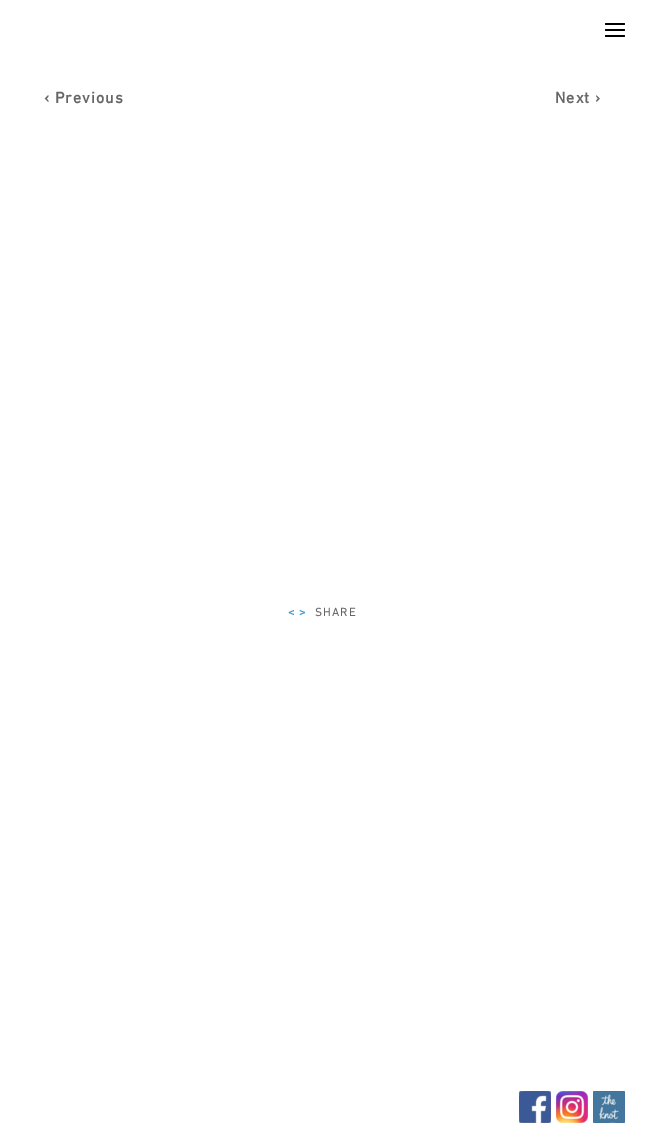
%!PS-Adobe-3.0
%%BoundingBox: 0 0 645 1136
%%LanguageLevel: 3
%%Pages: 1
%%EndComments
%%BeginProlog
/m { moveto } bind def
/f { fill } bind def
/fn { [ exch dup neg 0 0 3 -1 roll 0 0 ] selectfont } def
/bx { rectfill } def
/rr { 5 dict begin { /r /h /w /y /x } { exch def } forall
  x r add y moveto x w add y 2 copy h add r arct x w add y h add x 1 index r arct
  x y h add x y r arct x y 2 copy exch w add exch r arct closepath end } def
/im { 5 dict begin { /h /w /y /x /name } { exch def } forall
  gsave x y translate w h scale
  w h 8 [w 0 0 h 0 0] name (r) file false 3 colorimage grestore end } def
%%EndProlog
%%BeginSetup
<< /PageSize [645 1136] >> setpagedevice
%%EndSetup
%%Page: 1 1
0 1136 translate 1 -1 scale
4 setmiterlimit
1 setgray
0 0 645 1136 bx
0 setgray
605 35 20 2 1 rr f
605 23 20 2 1 rr f
605 29 20 2 1 rr f
/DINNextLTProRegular-Bold 16 fn
0.4 setgray
44 103 m 1 0 (‹ Previous) ashow
555 103 m 1 0 (Next ›) ashow
/DINNextLTProRegular-Bold 12 fn
0.235 0.596 0.8 setrgbcolor
288 616 m 1 0 (< >) ashow
/DINNextLTProRegular-Regular 12 fn
0.4 setgray
315 616 m 1 0 (SHARE) ashow
(image0.raw) 519 1091 32 32 im
(image1.raw) 556 1091 32 32 im
(image2.raw) 593 1091 32 32 im
showpage
%%EOF
